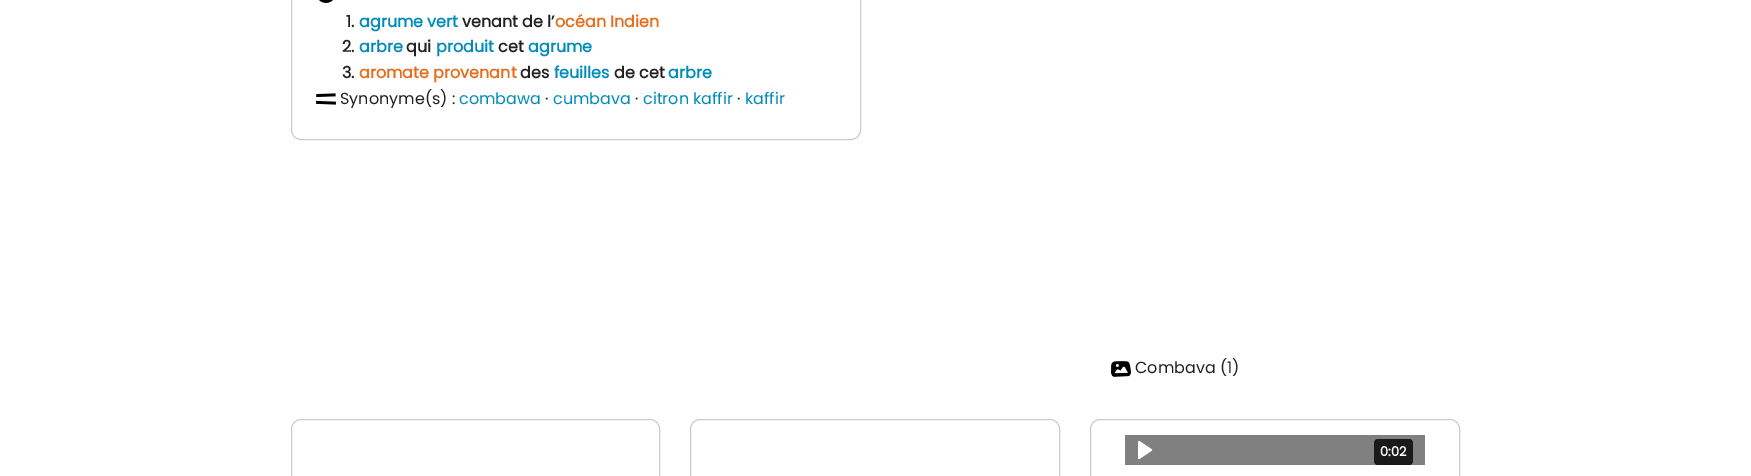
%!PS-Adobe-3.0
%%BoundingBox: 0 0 1751 476
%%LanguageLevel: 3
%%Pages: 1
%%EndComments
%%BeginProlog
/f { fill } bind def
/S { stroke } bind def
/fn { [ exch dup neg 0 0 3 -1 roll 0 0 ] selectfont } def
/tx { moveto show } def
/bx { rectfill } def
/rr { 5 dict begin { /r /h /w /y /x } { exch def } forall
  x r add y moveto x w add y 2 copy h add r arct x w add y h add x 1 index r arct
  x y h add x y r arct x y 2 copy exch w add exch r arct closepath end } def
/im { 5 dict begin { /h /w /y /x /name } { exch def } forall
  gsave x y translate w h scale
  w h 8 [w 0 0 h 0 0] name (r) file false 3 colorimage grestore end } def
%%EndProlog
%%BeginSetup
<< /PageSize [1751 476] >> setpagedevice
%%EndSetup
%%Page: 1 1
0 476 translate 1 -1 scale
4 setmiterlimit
1 setgray
0 0 1751 476 bx
0.8 setgray
291.5 -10.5 569 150 9.5 rr S
(image0.raw) 319 0 14 3 im
/Poppins-Bold 16 fn
0.133 setgray
(1.) 346 27 tx
0 0.549 0.729 setrgbcolor
(agrume vert) 359 27 tx
0.133 setgray
(venant de l’) 462 27 tx
0.906 0.431 0.11 setrgbcolor
(océan Indien) 555 27 tx
0.133 setgray
(2.) 342 52 tx
0 0.549 0.729 setrgbcolor
(arbre) 359 52 tx
0.133 setgray
(qui) 406 52 tx
0 0.549 0.729 setrgbcolor
(produit) 436 52 tx
0.133 setgray
(cet) 498 52 tx
0 0.549 0.729 setrgbcolor
(agrume) 528 52 tx
0.133 setgray
(3.) 342 78 tx
0.906 0.431 0.11 setrgbcolor
(aromate provenant) 359 78 tx
0.133 setgray
(des) 520 78 tx
0 0.549 0.729 setrgbcolor
(feuilles) 554 78 tx
0.133 setgray
(de cet) 614 78 tx
0 0.549 0.729 setrgbcolor
(arbre) 668 78 tx
(image1.raw) 316 93 20 12 im
/Poppins-Regular 16 fn
0.133 setgray
(Synonyme\(s\) :) 340 104 tx
0 0.549 0.729 setrgbcolor
(combawa) 459 104 tx
0.133 setgray
(·) 545 104 tx
0 0.549 0.729 setrgbcolor
(cumbava) 553 104 tx
0.133 setgray
(·) 635 104 tx
0 0.549 0.729 setrgbcolor
(citron kaffir) 643 104 tx
0.133 setgray
(·) 737 104 tx
0 0.549 0.729 setrgbcolor
(kaffir) 745 104 tx
(image2.raw) 1111 361 20 16 im
0.133 setgray
(Combava \(1\)) 1135 373 tx
0.8 setgray
291.5 419.5 368 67 9.5 rr S
690.5 419.5 369 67 9.5 rr S
1090.5 419.5 369 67 9.5 rr S
0.502 setgray
1125 435 300 30 bx
(image3.raw) 1138 440 15 20 im
0.102 setgray
1374 439 39 26 4 rr f
/Poppins-Bold 13 fn
1 setgray
(0:02) 1380 456 tx
showpage
%%EOF
